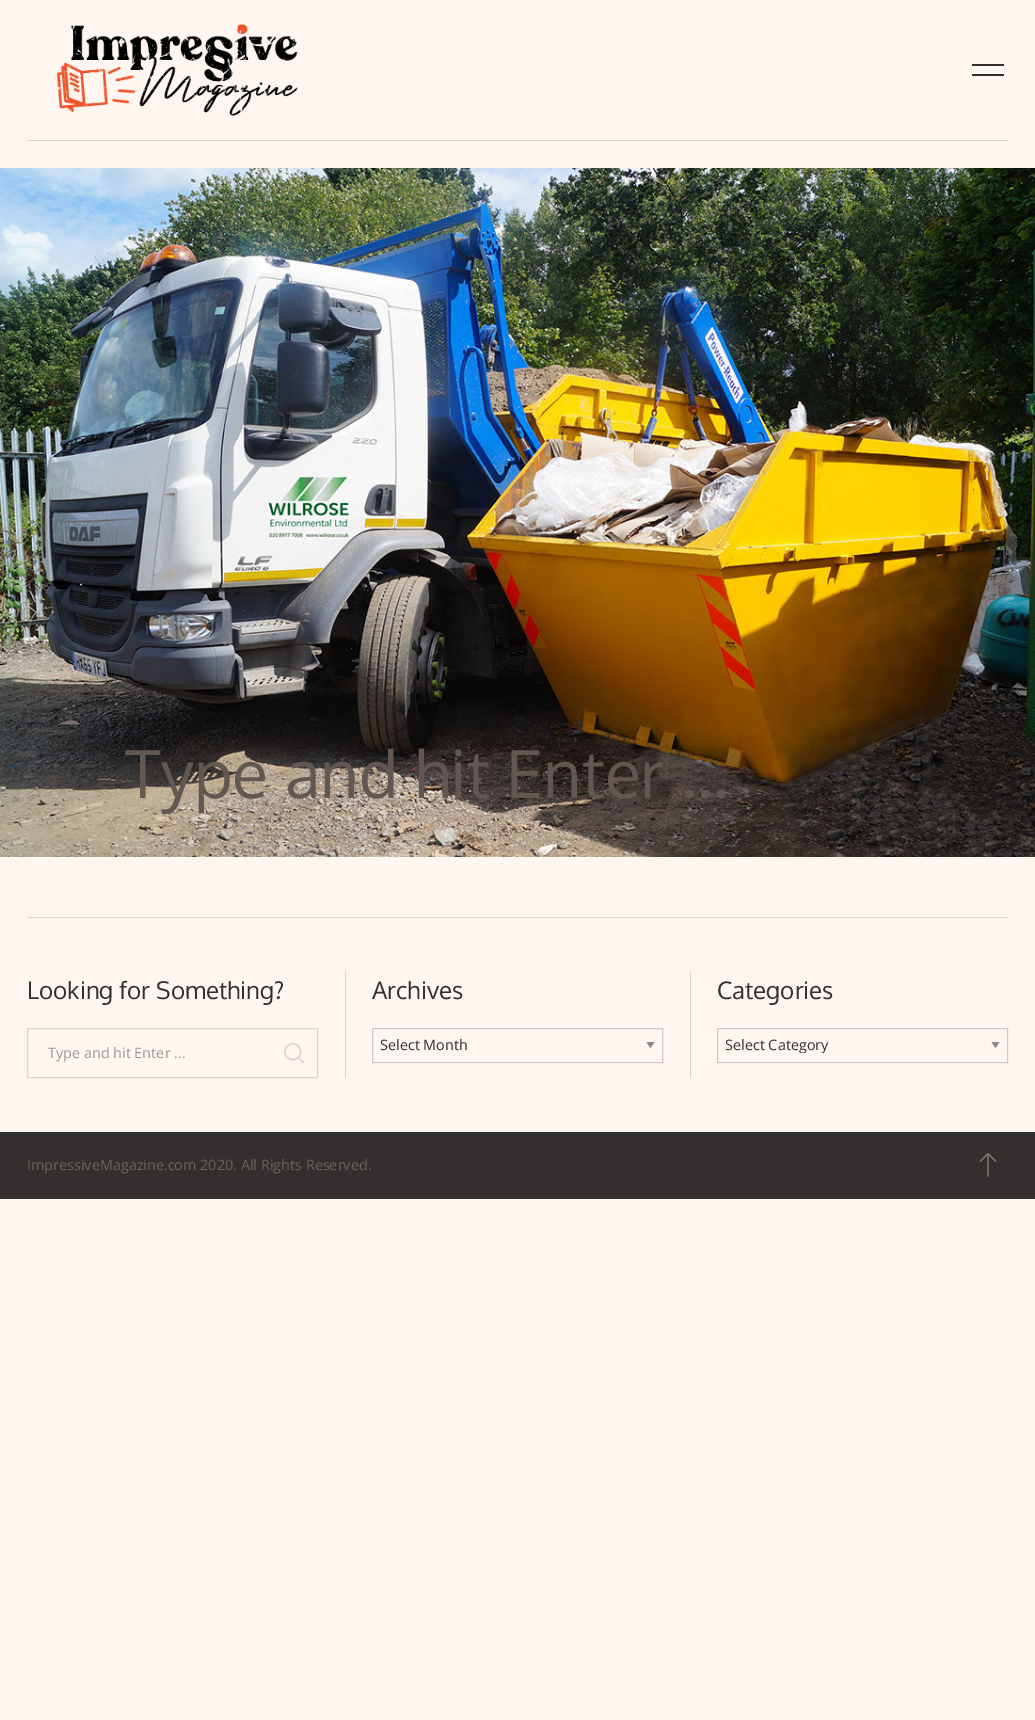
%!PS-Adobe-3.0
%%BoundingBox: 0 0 1035 1720
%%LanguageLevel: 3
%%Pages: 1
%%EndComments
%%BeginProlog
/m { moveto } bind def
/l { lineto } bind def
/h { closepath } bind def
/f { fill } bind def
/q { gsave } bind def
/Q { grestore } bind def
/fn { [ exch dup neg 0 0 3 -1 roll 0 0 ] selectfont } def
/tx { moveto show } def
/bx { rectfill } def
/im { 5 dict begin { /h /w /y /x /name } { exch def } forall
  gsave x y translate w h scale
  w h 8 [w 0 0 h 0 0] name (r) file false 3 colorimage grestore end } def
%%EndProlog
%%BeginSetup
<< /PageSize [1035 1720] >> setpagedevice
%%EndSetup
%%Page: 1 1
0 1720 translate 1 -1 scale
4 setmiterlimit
1 0.965 0.945 setrgbcolor
0 0 1035 1720 bx
(image0.raw) 56 24 242 92 im
0.2 0.184 0.18 setrgbcolor
972 64 32 2 bx
972 74 32 2 bx
0.89 0.82 0.78 setrgbcolor
27 140 981 1 bx
(image1.raw) 0 168 1035 689 im
/Oxygen-Regular 66.25 fn
0.388 0.345 0.318 setrgbcolor
(Type and hit Enter ...) 125 798 tx
0.89 0.82 0.78 setrgbcolor
27 917 981 1 bx
/Oxygen-Regular 24.1 fn
0.2 0.184 0.18 setrgbcolor
(Looking for Something?) 27 999 tx
0.89 0.82 0.78 setrgbcolor
27.5 1028.5 290 49 rectstroke
/OpenSans-Regular 14.4 fn
0.616 0.596 0.584 setrgbcolor
(Type and hit Enter ...) 48 1058 tx
(image2.raw) 284 1043 20 20 im
0.89 0.82 0.78 setrgbcolor
345 971 1 107 bx
/Oxygen-Regular 24.1 fn
0.2 0.184 0.18 setrgbcolor
(Archives) 372 999 tx
0.541 setgray
646.5 1042 m 654.5 1042 l 650.5 1048 l h f
0.792 setgray
372.5 1028.5 290 34 rectstroke
/OpenSans-Regular 14.4 fn
0.2 0.184 0.18 setrgbcolor
(Select Month) 380 1050 tx
0.89 0.82 0.78 setrgbcolor
690 971 1 107 bx
/Oxygen-Regular 24.1 fn
0.2 0.184 0.18 setrgbcolor
(Categories) 717 999 tx
0.541 setgray
991.5 1042 m 999.5 1042 l 995.5 1048 l h f
0.792 setgray
717.5 1028.5 290 34 rectstroke
q
725 1038 260 15 rectclip
/OpenSans-Regular 14.4 fn
0.2 0.184 0.18 setrgbcolor
(Select Category) 725 1050 tx
Q
0.2 0.184 0.18 setrgbcolor
0 1132 1035 67 bx
/OpenSans-Regular 14.4 fn
0.424 0.384 0.365 setrgbcolor
(ImpressiveMagazine.com 2020. All Rights Reserved.) 27 1170 tx
(image3.raw) 980 1153 17 24 im
showpage
%%EOF
